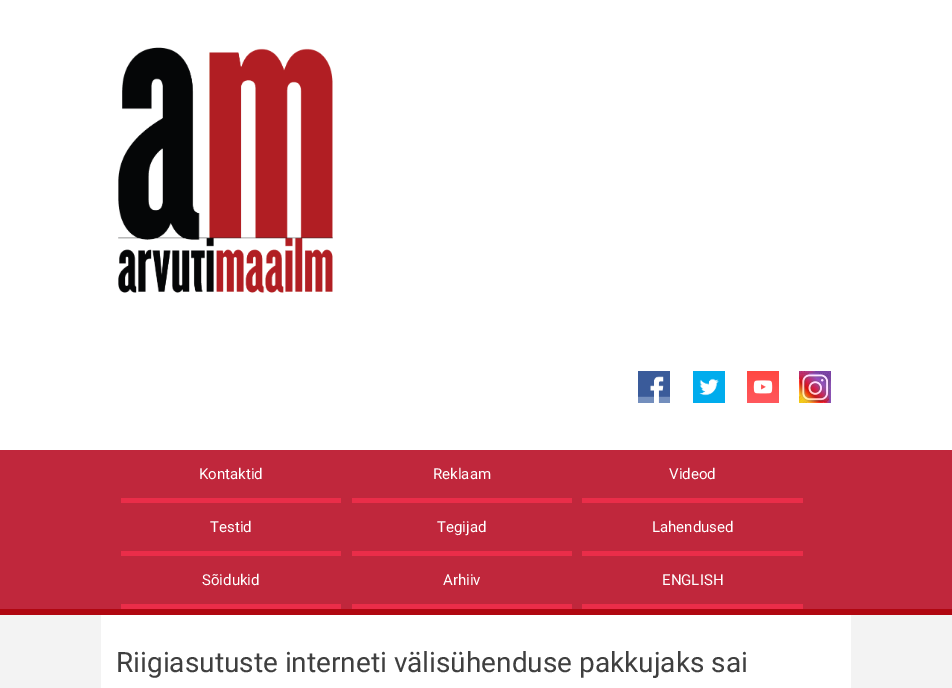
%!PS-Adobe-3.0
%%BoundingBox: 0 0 952 688
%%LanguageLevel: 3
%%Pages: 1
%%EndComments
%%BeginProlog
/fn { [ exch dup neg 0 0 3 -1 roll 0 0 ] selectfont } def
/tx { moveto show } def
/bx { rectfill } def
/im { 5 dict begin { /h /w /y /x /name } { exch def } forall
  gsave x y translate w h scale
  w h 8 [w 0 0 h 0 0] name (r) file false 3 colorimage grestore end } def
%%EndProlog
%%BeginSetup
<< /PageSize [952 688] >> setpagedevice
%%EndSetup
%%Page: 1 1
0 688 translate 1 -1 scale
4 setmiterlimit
0.953 setgray
0 0 952 688 bx
1 setgray
0 0 952 450 bx
(image0.raw) 118 47 215 246 im
(image1.raw) 638 371 32 32 im
(image2.raw) 693 371 32 32 im
(image3.raw) 747 371 32 32 im
(image4.raw) 799 371 32 32 im
0.753 0.153 0.235 setrgbcolor
0 450 952 159 bx
0.69 0.027 0.067 setrgbcolor
0 609 952 6 bx
0.918 0.176 0.286 setrgbcolor
121 498 220 5 bx
/Roboto-Regular 15 fn
1 setgray
(Kontaktid) 199 479 tx
0.918 0.176 0.286 setrgbcolor
352 498 220 5 bx
1 setgray
(Reklaam) 433 479 tx
0.918 0.176 0.286 setrgbcolor
582 498 221 5 bx
1 setgray
(Videod) 669 479 tx
0.918 0.176 0.286 setrgbcolor
121 551 220 5 bx
1 setgray
(Testid) 210 532 tx
0.918 0.176 0.286 setrgbcolor
352 551 220 5 bx
1 setgray
(Tegijad) 437 532 tx
0.918 0.176 0.286 setrgbcolor
582 551 221 5 bx
1 setgray
(Lahendused) 652 532 tx
0.918 0.176 0.286 setrgbcolor
121 604 220 5 bx
1 setgray
(Sõidukid) 202 585 tx
0.918 0.176 0.286 setrgbcolor
352 604 220 5 bx
1 setgray
(Arhiiv) 443 585 tx
0.918 0.176 0.286 setrgbcolor
582 604 221 5 bx
1 setgray
(ENGLISH) 662 585 tx
101 615 750 73 bx
/Roboto-Regular 28 fn
0.247 setgray
(Riigiasutuste interneti välisühenduse pakkujaks sai) 116 672 tx
showpage
%%EOF
